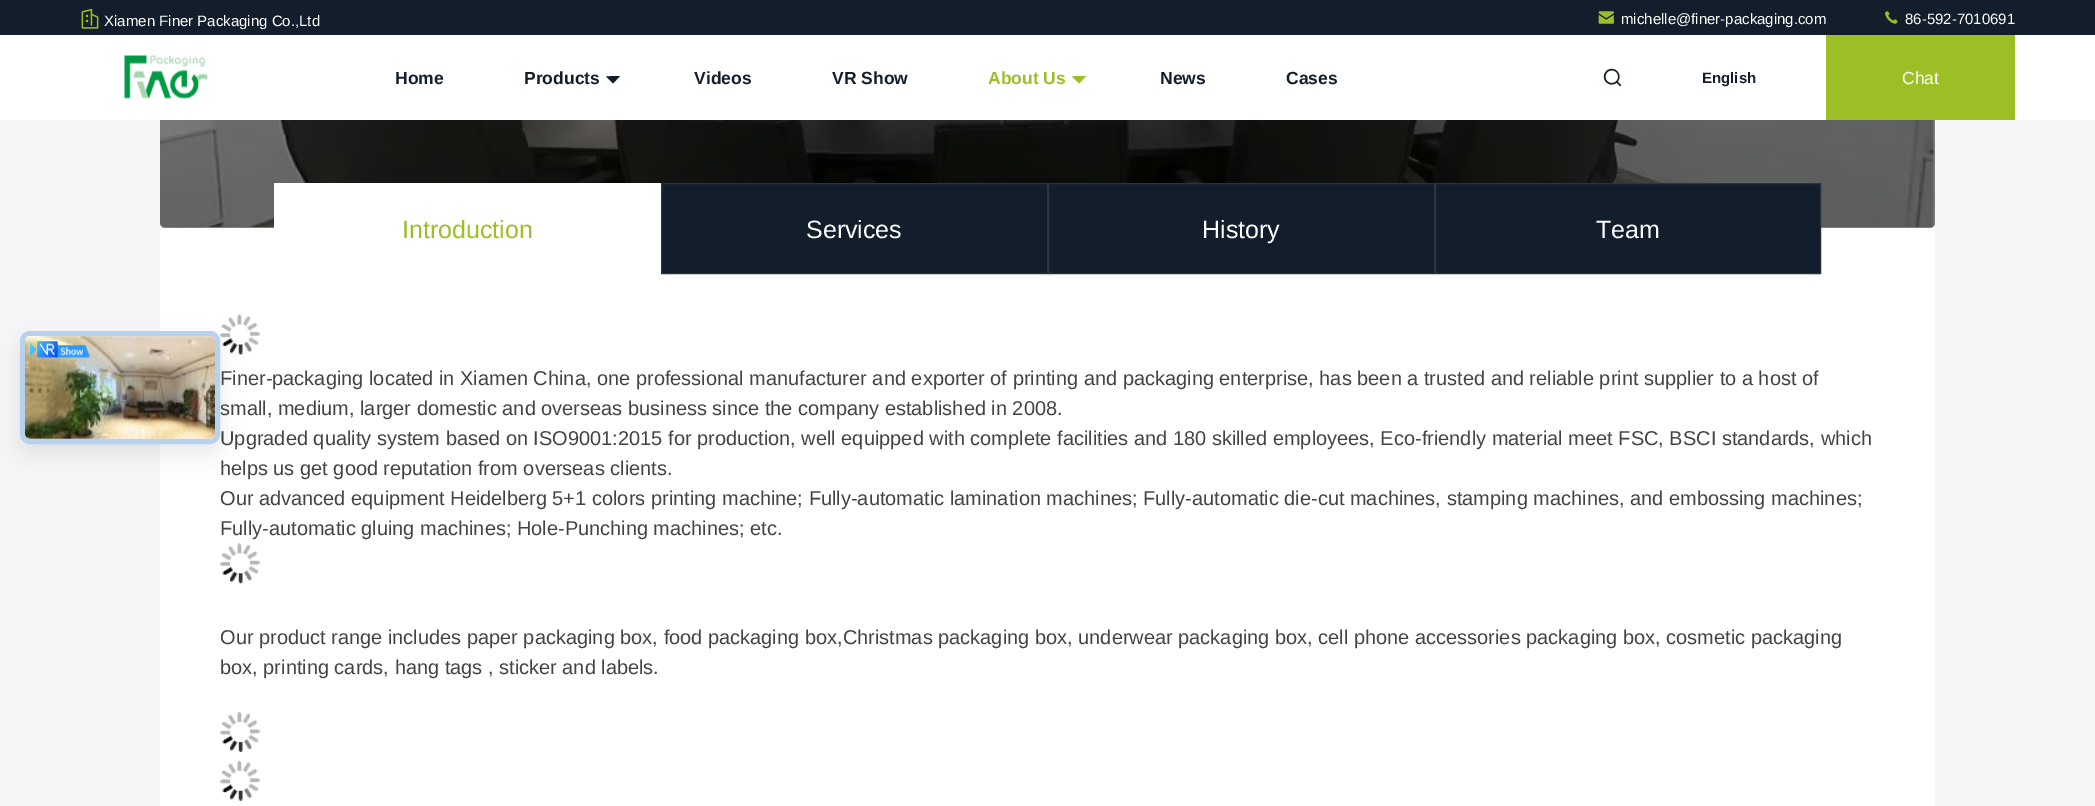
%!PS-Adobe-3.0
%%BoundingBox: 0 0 2095 806
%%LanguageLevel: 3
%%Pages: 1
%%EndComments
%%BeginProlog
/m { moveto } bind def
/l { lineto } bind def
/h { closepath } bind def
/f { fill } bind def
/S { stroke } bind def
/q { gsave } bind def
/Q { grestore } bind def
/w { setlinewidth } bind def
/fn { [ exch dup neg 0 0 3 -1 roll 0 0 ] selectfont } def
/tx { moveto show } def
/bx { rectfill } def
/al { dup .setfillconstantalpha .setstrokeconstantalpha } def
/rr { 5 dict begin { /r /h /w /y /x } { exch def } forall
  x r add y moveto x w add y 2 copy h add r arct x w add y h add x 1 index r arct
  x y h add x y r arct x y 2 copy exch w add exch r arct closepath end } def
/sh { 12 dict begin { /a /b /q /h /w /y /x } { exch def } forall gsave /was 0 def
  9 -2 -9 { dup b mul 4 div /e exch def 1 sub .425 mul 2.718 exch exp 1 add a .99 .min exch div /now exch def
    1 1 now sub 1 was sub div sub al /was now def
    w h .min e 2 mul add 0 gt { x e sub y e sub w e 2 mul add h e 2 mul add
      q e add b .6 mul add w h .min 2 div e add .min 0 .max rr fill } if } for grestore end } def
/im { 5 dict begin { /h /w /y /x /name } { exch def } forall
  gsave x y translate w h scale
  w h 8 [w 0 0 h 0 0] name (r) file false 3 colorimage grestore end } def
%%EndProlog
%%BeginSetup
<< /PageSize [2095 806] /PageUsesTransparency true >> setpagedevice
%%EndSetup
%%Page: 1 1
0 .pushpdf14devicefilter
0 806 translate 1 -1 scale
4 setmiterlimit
0.965 0.965 0.976 setrgbcolor
0 0 2095 806 bx
1 setgray
160 222 1775 584 bx
(image7.raw) 160 120 1775 107 im
0.5 al
0 setgray
160 -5 1775 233 5 rr f
1 al
0.075 0.118 0.173 setrgbcolor
0 0 2095 35 bx
(image0.raw) 81 8 18 21 im
/LiberationSans-Regular 15 fn
1 setgray
(Xiamen Finer Packaging Co.,Ltd) 104 26 tx
(image1.raw) 1598 11 16 13 im
(michelle@finer-packaging.com) 1621 24 tx
(image2.raw) 1885 11 13 13 im
(86-592-7010691) 1905 24 tx
0 35 2095 85 bx
(image3.raw) 124 55 84 44 im
/LiberationSans-Bold 17.5 fn
0.075 0.118 0.173 setrgbcolor
(Home) 395 84 tx
(Products) 524 84 tx
613 83.5 m 606 76.5 l 613 76 l h 620 76 m 613 83.5 l 613 76 l h f
(Videos) 694 84 tx
(VR Show) 832 84 tx
0.612 0.749 0.145 setrgbcolor
(About Us) 988 84 tx
1079 83.5 m 1072 76.5 l 1079 76 l h 1086 76 m 1079 83.5 l 1079 76 l h f
0.075 0.118 0.173 setrgbcolor
(News) 1160 84 tx
(Cases) 1286 84 tx
(image4.raw) 1603 68 19 19 im
/LiberationSans-Bold 15 fn
(English) 1702 83 tx
0.612 0.749 0.145 setrgbcolor
1826 35 189 85 bx
/LiberationSans-Regular 17.5 fn
1 setgray
(Chat) 1902 84 tx
(image8.raw) 220 314 40 41 im
0 setgray
20 341 200 113 10 10 0.08 sh
0.933 setgray
20 331 200 113 10 rr f
0.24 al
0.016 0.471 0.929 setrgbcolor
5 w
22.5 333.5 195 108 7.5 rr S
1 al
0.933 setgray
25 336 190 103 5 rr f
(image5.raw) 25 336 190 103 im
(image6.raw) 30 341 60 18 im
1 setgray
274 183 387 45 bx
/LiberationSans-Regular 25 fn
0.612 0.749 0.145 setrgbcolor
(Introduction) 402 238 tx
0.075 0.118 0.173 setrgbcolor
661.5 183.5 m 1047.5 183.5 l 1047.5 273.5 l 661.5 273.5 l h q f Q
0.169 0.208 0.255 setrgbcolor
1 w
S
1 setgray
(Services) 806 238 tx
0.075 0.118 0.173 setrgbcolor
1048.5 183.5 m 1434.5 183.5 l 1434.5 273.5 l 1048.5 273.5 l h q f Q
0.169 0.208 0.255 setrgbcolor
S
1 setgray
(History) 1202 238 tx
0.075 0.118 0.173 setrgbcolor
1435.5 183.5 m 1820.5 183.5 l 1820.5 273.5 l 1435.5 273.5 l h q f Q
0.169 0.208 0.255 setrgbcolor
S
1 setgray
(Team) 1596 238 tx
/LiberationSans-Regular 20 fn
0.267 setgray
(Finer-packaging located in Xiamen China, one professional manufacturer and exporter of printing and packaging enterprise, has been a trusted and reliable print supplier to a host of) 220 385 tx
(small, medium, larger domestic and overseas business since the company established in 2008.) 220 415 tx
(Upgraded quality system based on ISO9001:2015 for production, well equipped with complete facilities and 180 skilled employees, Eco-friendly material meet FSC, BSCI standards, which) 220 445 tx
(helps us get good reputation from overseas clients.) 220 475 tx
(Our advanced equipment Heidelberg 5+1 colors printing machine; Fully-automatic lamination machines; Fully-automatic die-cut machines, stamping machines, and embossing machines;) 220 505 tx
(Fully-automatic gluing machines; Hole-Punching machines; etc.) 220 535 tx
(image9.raw) 220 543 40 41 im
(Our product range includes paper packaging box, food packaging box,Christmas packaging box, underwear packaging box, cell phone accessories packaging box, cosmetic packaging) 220 644 tx
(box, printing cards, hang tags , sticker and labels.) 220 674 tx
(image10.raw) 220 712 40 40 im
(image11.raw) 220 760 40 41 im
.poppdf14devicefilter showpage
%%EOF
